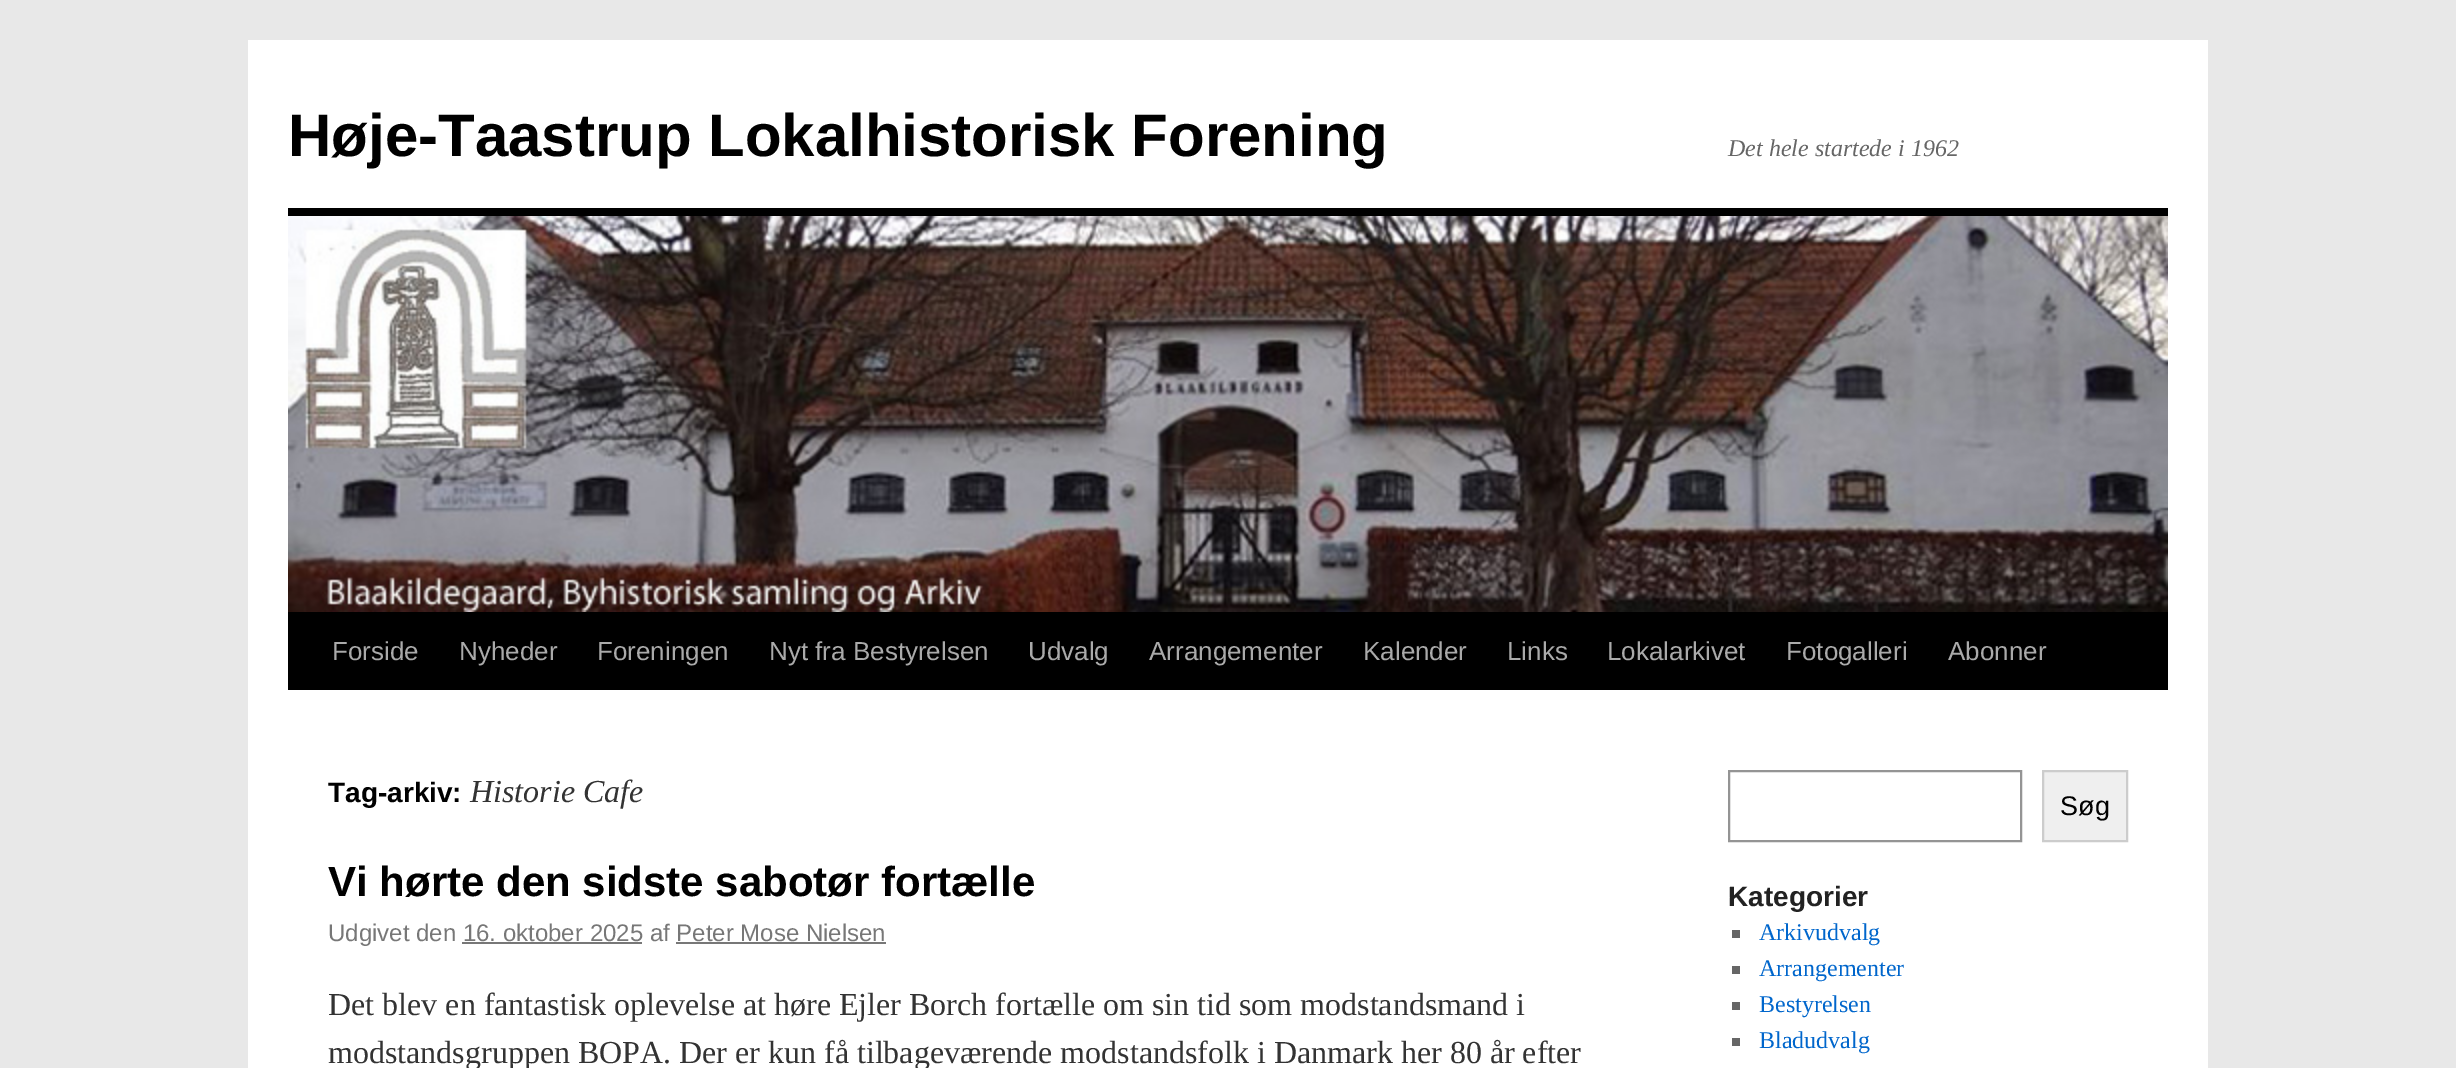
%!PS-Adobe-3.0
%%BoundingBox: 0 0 2456 1068
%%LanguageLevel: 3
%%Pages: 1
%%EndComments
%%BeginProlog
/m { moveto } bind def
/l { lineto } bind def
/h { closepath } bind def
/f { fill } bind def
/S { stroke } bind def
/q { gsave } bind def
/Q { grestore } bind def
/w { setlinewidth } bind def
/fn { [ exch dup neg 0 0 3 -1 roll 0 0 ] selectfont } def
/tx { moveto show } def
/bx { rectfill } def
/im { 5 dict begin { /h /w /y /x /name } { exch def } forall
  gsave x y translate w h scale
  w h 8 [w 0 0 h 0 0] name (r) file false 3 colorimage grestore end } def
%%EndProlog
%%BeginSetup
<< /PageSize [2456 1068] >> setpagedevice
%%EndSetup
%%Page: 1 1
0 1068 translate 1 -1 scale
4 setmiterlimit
0.91 setgray
0 0 2456 1068 bx
1 setgray
248 40 1960 1028 bx
/LiberationSans-Bold 60 fn
0 setgray
(Høje-Taastrup Lokalhistorisk Forening) 288 156 tx
/LiberationSerif-Italic 24 fn
0.4 setgray
(Det hele startede i 1962) 1728 156 tx
0 setgray
288 208 1880 8 bx
288 612 1880 78 bx
(image0.raw) 288 216 1880 396 im
/LiberationSans-Regular 26 fn
0.667 setgray
(Forside) 332 660 tx
(Nyheder) 459 660 tx
(Foreningen) 597 660 tx
(Nyt fra Bestyrelsen) 769 660 tx
(Udvalg) 1028 660 tx
(Arrangementer) 1149 660 tx
(Kalender) 1363 660 tx
(Links) 1507 660 tx
(Lokalarkivet) 1607 660 tx
(Fotogalleri) 1786 660 tx
(Abonner) 1948 660 tx
/LiberationSans-Bold 28 fn
0 setgray
(Tag-arkiv:) 328 802 tx
/LiberationSerif-Italic 32 fn
0.2 setgray
(Historie Cafe) 470 802 tx
/LiberationSans-Bold 42 fn
0 setgray
(Vi hørte den sidste sabotør fortælle) 328 896 tx
/LiberationSans-Regular 24 fn
0.467 setgray
(Udgivet den 16. oktober 2025 af Peter Mose Nielsen) 328 941 tx
462 942 180 2 bx
676 942 210 2 bx
/LiberationSerif-Regular 32 fn
0.2 setgray
(Det blev en fantastisk oplevelse at høre Ejler Borch fortælle om sin tid som modstandsmand i) 328 1015 tx
(modstandsgruppen BOPA. Der er kun få tilbageværende modstandsfolk i Danmark her 80 år efter) 328 1063 tx
0.58 setgray
2 w
1729 771 292 70 rectstroke
0.937 setgray
2043 771 m 2127 771 l 2127 841 l 2043 841 l h q f Q
0.8 setgray
S
/LiberationSans-Regular 27 fn
0 setgray
(Søg) 2060 815 tx
/LiberationSans-Bold 28 fn
0.133 setgray
(Kategorier) 1728 906 tx
0.4 setgray
1732 930 8 8 bx
/LiberationSerif-Regular 24 fn
0 0.4 0.8 setrgbcolor
(Arkivudvalg) 1759 940 tx
0.4 setgray
1732 966 8 8 bx
0 0.4 0.8 setrgbcolor
(Arrangementer) 1759 976 tx
0.4 setgray
1732 1002 8 8 bx
0 0.4 0.8 setrgbcolor
(Bestyrelsen) 1759 1012 tx
0.4 setgray
1732 1038 8 8 bx
0 0.4 0.8 setrgbcolor
(Bladudvalg) 1759 1048 tx
showpage
%%EOF
